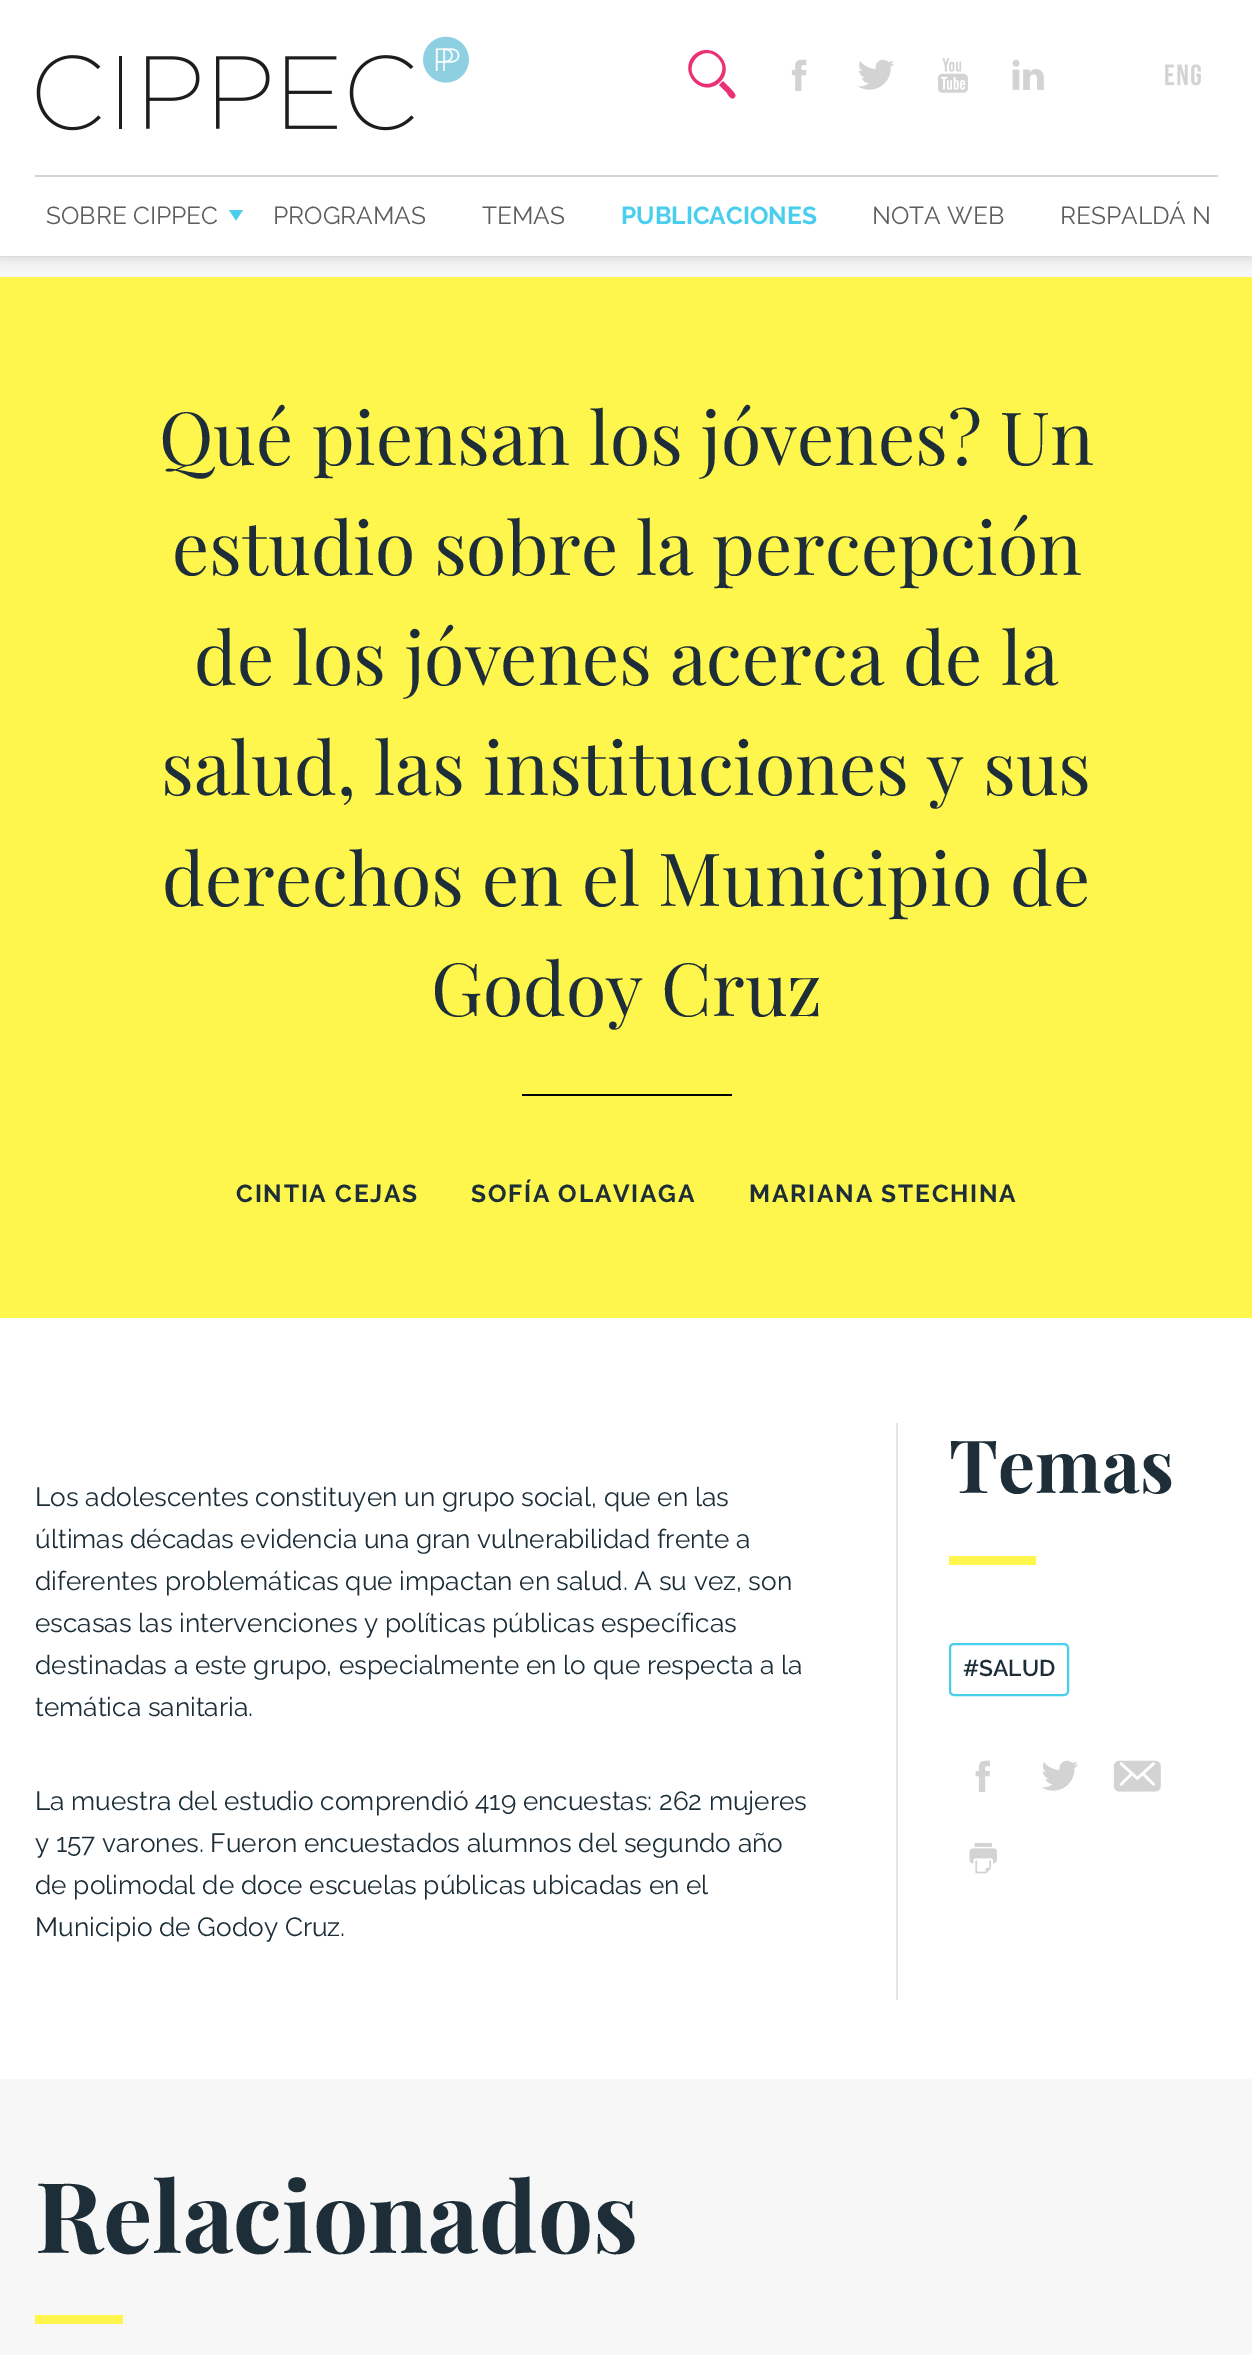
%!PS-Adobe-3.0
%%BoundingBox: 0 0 1252 2355
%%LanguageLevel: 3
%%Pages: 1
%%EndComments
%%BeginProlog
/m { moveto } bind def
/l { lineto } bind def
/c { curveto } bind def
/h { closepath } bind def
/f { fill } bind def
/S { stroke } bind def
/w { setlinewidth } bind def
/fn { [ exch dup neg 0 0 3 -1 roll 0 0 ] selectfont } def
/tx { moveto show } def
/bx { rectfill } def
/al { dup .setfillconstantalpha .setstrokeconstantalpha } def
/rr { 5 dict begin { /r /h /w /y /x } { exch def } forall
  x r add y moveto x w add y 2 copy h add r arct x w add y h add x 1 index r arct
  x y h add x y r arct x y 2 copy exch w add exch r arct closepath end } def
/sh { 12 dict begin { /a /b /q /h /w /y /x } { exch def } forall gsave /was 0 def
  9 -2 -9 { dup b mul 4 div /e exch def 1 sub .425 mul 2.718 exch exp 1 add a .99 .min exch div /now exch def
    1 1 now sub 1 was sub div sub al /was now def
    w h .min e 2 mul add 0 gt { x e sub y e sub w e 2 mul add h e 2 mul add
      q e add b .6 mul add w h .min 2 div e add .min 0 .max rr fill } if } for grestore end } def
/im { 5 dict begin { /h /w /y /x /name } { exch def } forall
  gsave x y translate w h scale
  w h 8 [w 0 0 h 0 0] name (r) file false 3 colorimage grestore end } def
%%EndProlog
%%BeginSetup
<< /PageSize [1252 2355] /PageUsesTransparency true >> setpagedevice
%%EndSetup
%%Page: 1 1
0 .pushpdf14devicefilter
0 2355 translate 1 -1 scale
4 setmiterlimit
0.969 setgray
0 0 1252 2355 bx
1 0.965 0.302 setrgbcolor
0 277 1252 1041 bx
0 setgray
0 0 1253 256 0 7 0.2 sh
1 setgray
0 0 1252 256 bx
(image0.raw) 36 36 433 95 im
0.918 0.192 0.459 setrgbcolor
694 55 m 677 72 702 99 720 82 c 737 65 712 39 694 55 c h 718 58 m 732 72 710 94 696 79 c 682 65 704 43 718 58 c h 719 85 m 723 81 l 731 89 l 732 91 738 95 734 98 c 731 100 728 95 727 93 c h f
(image1.raw) 791 59 16 32 im
(image2.raw) 858 59 37 31 im
(image3.raw) 938 58 30 35 im
(image4.raw) 1012 59 32 31 im
(image5.raw) 1165 64 36 22 im
0.827 setgray
35 175 1183 2 bx
/Raleway-Regular 24.5 fn
0.365 setgray
(SOBRE CIPPEC) 46 224 tx
0.29 0.808 0.929 setrgbcolor
229 210 m 243 210 l 236 220.5 l h f
0.365 setgray
(PROGRAMAS) 273 224 tx
(TEMAS) 482 224 tx
/Raleway-Bold 24.5 fn
0.29 0.808 0.929 setrgbcolor
(PUBLICACIONES) 621 224 tx
/Raleway-Regular 24.5 fn
0.365 setgray
(NOTA WEB) 872 224 tx
(RESPALDÁ N) 1060 224 tx
/PlayfairDisplay-Regular 73.5 fn
0.114 0.18 0.22 setrgbcolor
(Qué piensan los jóvenes? Un) 159 465 tx
(estudio sobre la percepción) 172 575 tx
(de los jóvenes acerca de la) 194 685 tx
(salud, las instituciones y sus) 161 795 tx
(derechos en el Municipio de) 162 906 tx
(Godoy Cruz) 431 1016 tx
0 setgray
522 1094 210 2 bx
/Raleway-Bold 24.5 fn
0.114 0.18 0.22 setrgbcolor
236 1202 m 1.75 0 (CINTIA CEJAS) ashow
471 1202 m 1.75 0 (SOFÍA OLAVIAGA) ashow
749 1202 m 1.75 0 (MARIANA STECHINA) ashow
1 setgray
0 1318 1252 761 bx
/Raleway-Regular 26.25 fn
0.114 0.18 0.22 setrgbcolor
(Los adolescentes constituyen un grupo social, que en las) 35 1506 tx
(últimas décadas evidencia una gran vulnerabilidad frente a) 35 1548 tx
(diferentes problemáticas que impactan en salud. A su vez, son) 35 1590 tx
(escasas las intervenciones y políticas públicas específicas) 35 1632 tx
(destinadas a este grupo, especialmente en lo que respecta a la) 35 1674 tx
(temática sanitaria.) 35 1716 tx
(La muestra del estudio comprendió 419 encuestas: 262 mujeres) 35 1810 tx
(y 157 varones. Fueron encuestados alumnos del segundo año) 35 1852 tx
(de polimodal de doce escuelas públicas ubicadas en el) 35 1894 tx
(Municipio de Godoy Cruz.) 35 1936 tx
0.902 setgray
896 1423 2 577 bx
/PlayfairDisplay-Bold 73.5 fn
0.114 0.18 0.22 setrgbcolor
(Temas) 949 1493 tx
1 0.965 0.302 setrgbcolor
949 1556 87 9 bx
0.29 0.808 0.929 setrgbcolor
2 w
950 1644 118 51 4 rr S
/Raleway-SemiBold 22.75 fn
0.114 0.18 0.22 setrgbcolor
(#SALUD) 963 1676 tx
(image6.raw) 975 1760 15 32 im
(image7.raw) 1041 1760 37 31 im
(image8.raw) 1113 1760 48 32 im
(image9.raw) 969 1843 28 31 im
/PlayfairDisplay-Bold 98 fn
(Relacionados) 35 2253 tx
1 0.965 0.302 setrgbcolor
35 2315 88 9 bx
.poppdf14devicefilter showpage
%%EOF
